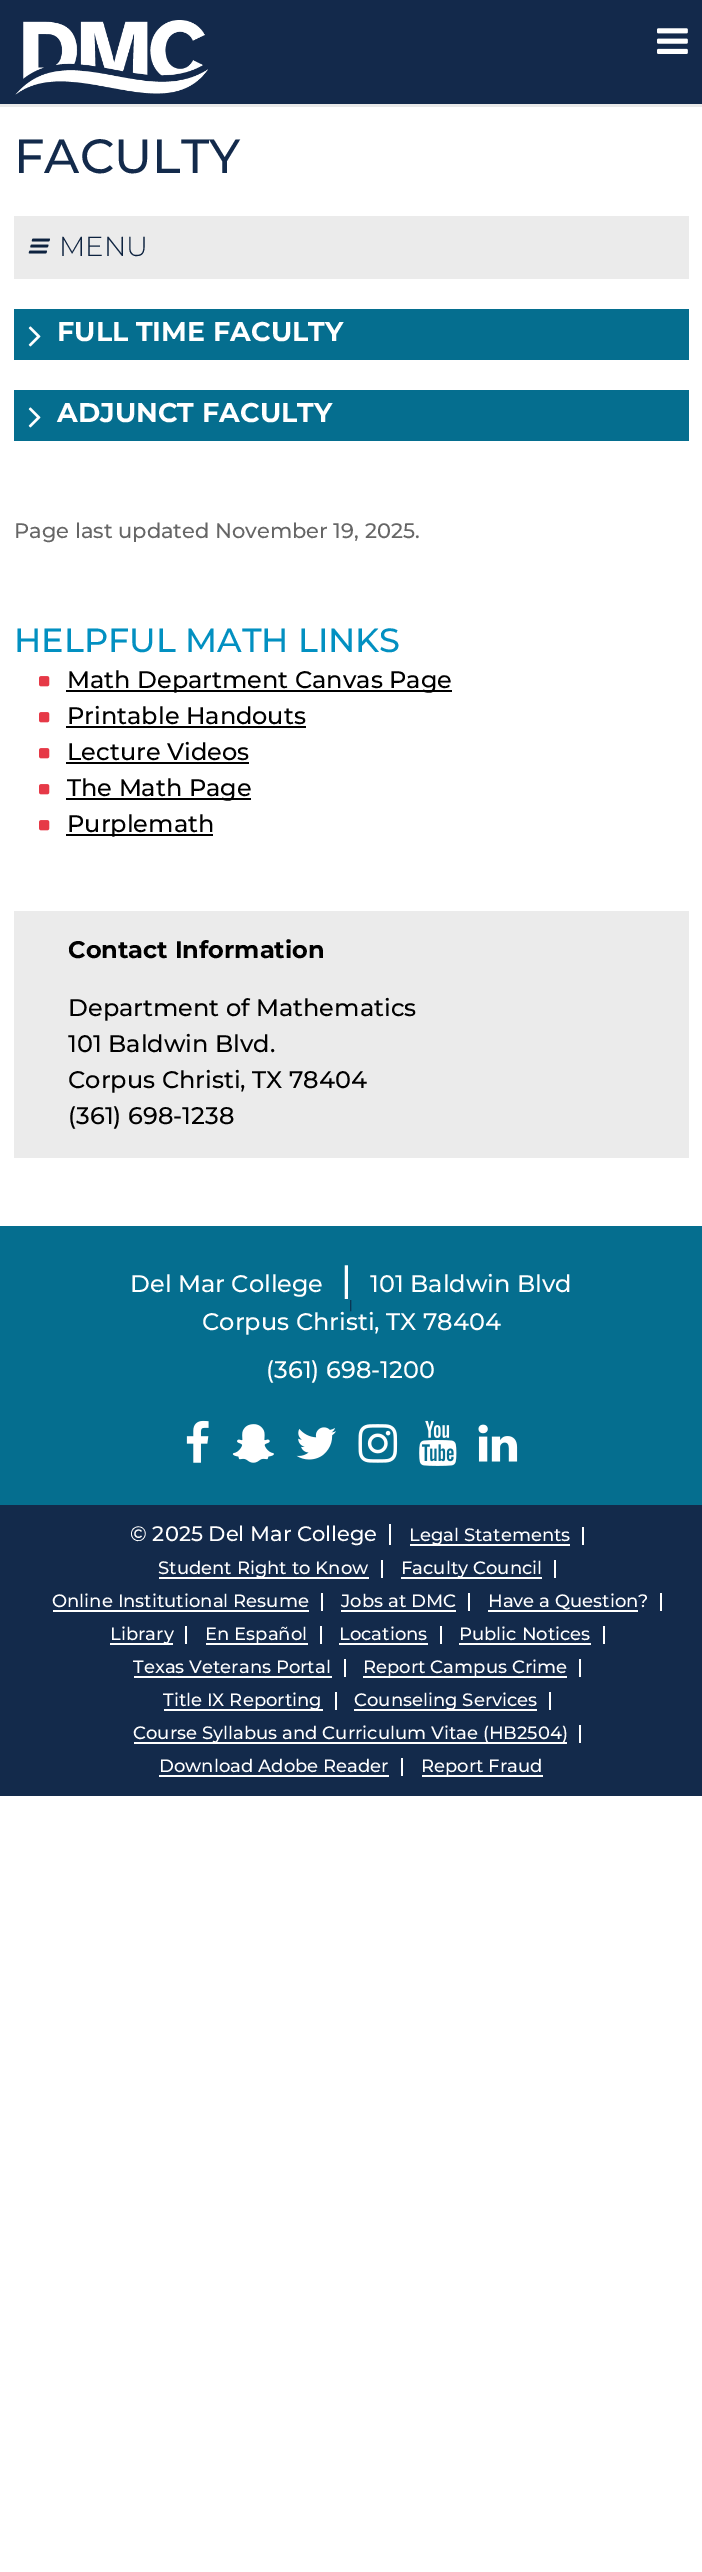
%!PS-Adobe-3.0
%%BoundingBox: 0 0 702 2572
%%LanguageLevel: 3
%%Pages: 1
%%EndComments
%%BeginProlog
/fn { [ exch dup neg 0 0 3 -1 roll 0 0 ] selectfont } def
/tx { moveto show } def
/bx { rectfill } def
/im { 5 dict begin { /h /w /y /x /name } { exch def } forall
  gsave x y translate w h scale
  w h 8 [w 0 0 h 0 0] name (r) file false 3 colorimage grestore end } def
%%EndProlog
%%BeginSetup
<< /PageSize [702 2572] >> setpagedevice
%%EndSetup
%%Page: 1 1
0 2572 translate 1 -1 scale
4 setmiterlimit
1 setgray
0 0 702 2572 bx
0.914 setgray
0 104 702 3 bx
0.075 0.161 0.294 setrgbcolor
0 0 702 104 bx
(image0.raw) 15 20 193 75 im
(image1.raw) 657 28 31 26 im
/Montserrat-Medium 48 fn
0.075 0.165 0.294 setrgbcolor
(FACULTY) 14 173 tx
0.922 setgray
14 216 675 63 bx
(image2.raw) 28 238 22 16 im
/Montserrat-Light 27.5 fn
0.051 0.133 0.247 setrgbcolor
(MENU) 59 256 tx
0.02 0.431 0.561 setrgbcolor
14 309 675 51 bx
(image3.raw) 28 326 13 21 im
/Montserrat-Bold 27 fn
1 setgray
(FULL TIME FACULTY) 57 341 tx
0.02 0.431 0.561 setrgbcolor
14 390 675 51 bx
(image3.raw) 28 407 13 21 im
1 setgray
(ADJUNCT FACULTY) 57 422 tx
/Montserrat-Medium 21 fn
0.4 setgray
(Page last updated November 19, 2025.) 14 538 tx
/Montserrat-Medium 33.6 fn
0.008 0.565 0.757 setrgbcolor
(HELPFUL MATH LINKS) 14 652 tx
(image4.raw) 39 676 11 11 im
0 setgray
66 690 386 2 bx
/Montserrat-Medium 24 fn
(Math Department Canvas Page) 67 688 tx
(image4.raw) 39 712 11 11 im
(Printable Handouts) 67 724 tx
66 726 240 2 bx
(image4.raw) 39 748 11 11 im
(Lecture Videos) 67 760 tx
66 762 183 2 bx
(image4.raw) 39 784 11 11 im
66 798 185 2 bx
(The Math Page) 67 796 tx
(image4.raw) 39 820 11 11 im
66 834 147 2 bx
(Purplemath) 67 832 tx
0.922 setgray
14 911 675 247 bx
/Montserrat-Bold 24 fn
0 setgray
(Contact Information) 68 958 tx
/Montserrat-Medium 24 fn
(Department of Mathematics) 68 1016 tx
(101 Baldwin Blvd.) 68 1052 tx
(Corpus Christi, TX 78404) 68 1088 tx
(\(361\) 698-1238) 68 1124 tx
0.02 0.431 0.561 setrgbcolor
0 1226 702 279 bx
1 setgray
(Del Mar College) 130 1292 tx
/Montserrat-Medium 36 fn
(|) 341 1292 tx
/Montserrat-Medium 24 fn
(101 Baldwin Blvd) 370 1292 tx
/Montserrat-Medium 12 fn
0.051 0.133 0.247 setrgbcolor
(|) 349 1309 tx
/Montserrat-Medium 24 fn
1 setgray
(Corpus Christi, TX 78404) 202 1330 tx
(\(361\) 698-1200) 266 1378 tx
(image5.raw) 186 1420 23 43 im
(image6.raw) 232 1424 42 39 im
(image7.raw) 296 1427 40 33 im
(image8.raw) 358 1424 40 39 im
(image9.raw) 419 1420 38 46 im
(image10.raw) 478 1424 40 38 im
0.075 0.165 0.294 setrgbcolor
0 1505 702 291 bx
1 setgray
389 1524 2 21 bx
/Montserrat-Medium 21 fn
(© 2025 Del Mar College) 130 1541 tx
582 1527 2 18 bx
410 1544 160 2 bx
/Montserrat-Medium 18 fn
(Legal Statements) 409 1541 tx
381 1560 2 18 bx
159 1577 210 2 bx
(Student Right to Know) 158 1574 tx
554 1560 2 18 bx
401 1577 141 2 bx
(Faculty Council) 401 1574 tx
321 1593 2 18 bx
(Online Institutional Resume) 52 1607 tx
53 1610 256 2 bx
468 1593 2 18 bx
(Jobs at DMC) 341 1607 tx
341 1610 115 2 bx
660 1593 2 18 bx
(Have a Question?) 488 1607 tx
488 1610 150 2 bx
185 1626 2 18 bx
110 1643 63 2 bx
(Library) 110 1640 tx
320 1626 2 18 bx
206 1643 102 2 bx
(En Español) 205 1640 tx
440 1626 2 18 bx
(Locations) 339 1640 tx
339 1643 89 2 bx
603 1626 2 18 bx
(Public Notices) 459 1640 tx
459 1643 132 2 bx
344 1659 2 18 bx
(Texas Veterans Portal) 133 1673 tx
134 1676 198 2 bx
579 1659 2 18 bx
363 1676 204 2 bx
(Report Campus Crime) 363 1673 tx
335 1692 2 18 bx
164 1709 159 2 bx
(Title IX Reporting) 163 1706 tx
549 1692 2 18 bx
354 1709 183 2 bx
(Counseling Services) 354 1706 tx
579 1725 2 18 bx
134 1742 433 2 bx
(Course Syllabus and Curriculum Vitae \(HB2504\)) 133 1739 tx
401 1758 2 18 bx
(Download Adobe Reader) 159 1772 tx
159 1775 230 2 bx
422 1775 121 2 bx
(Report Fraud) 421 1772 tx
showpage
%%EOF
